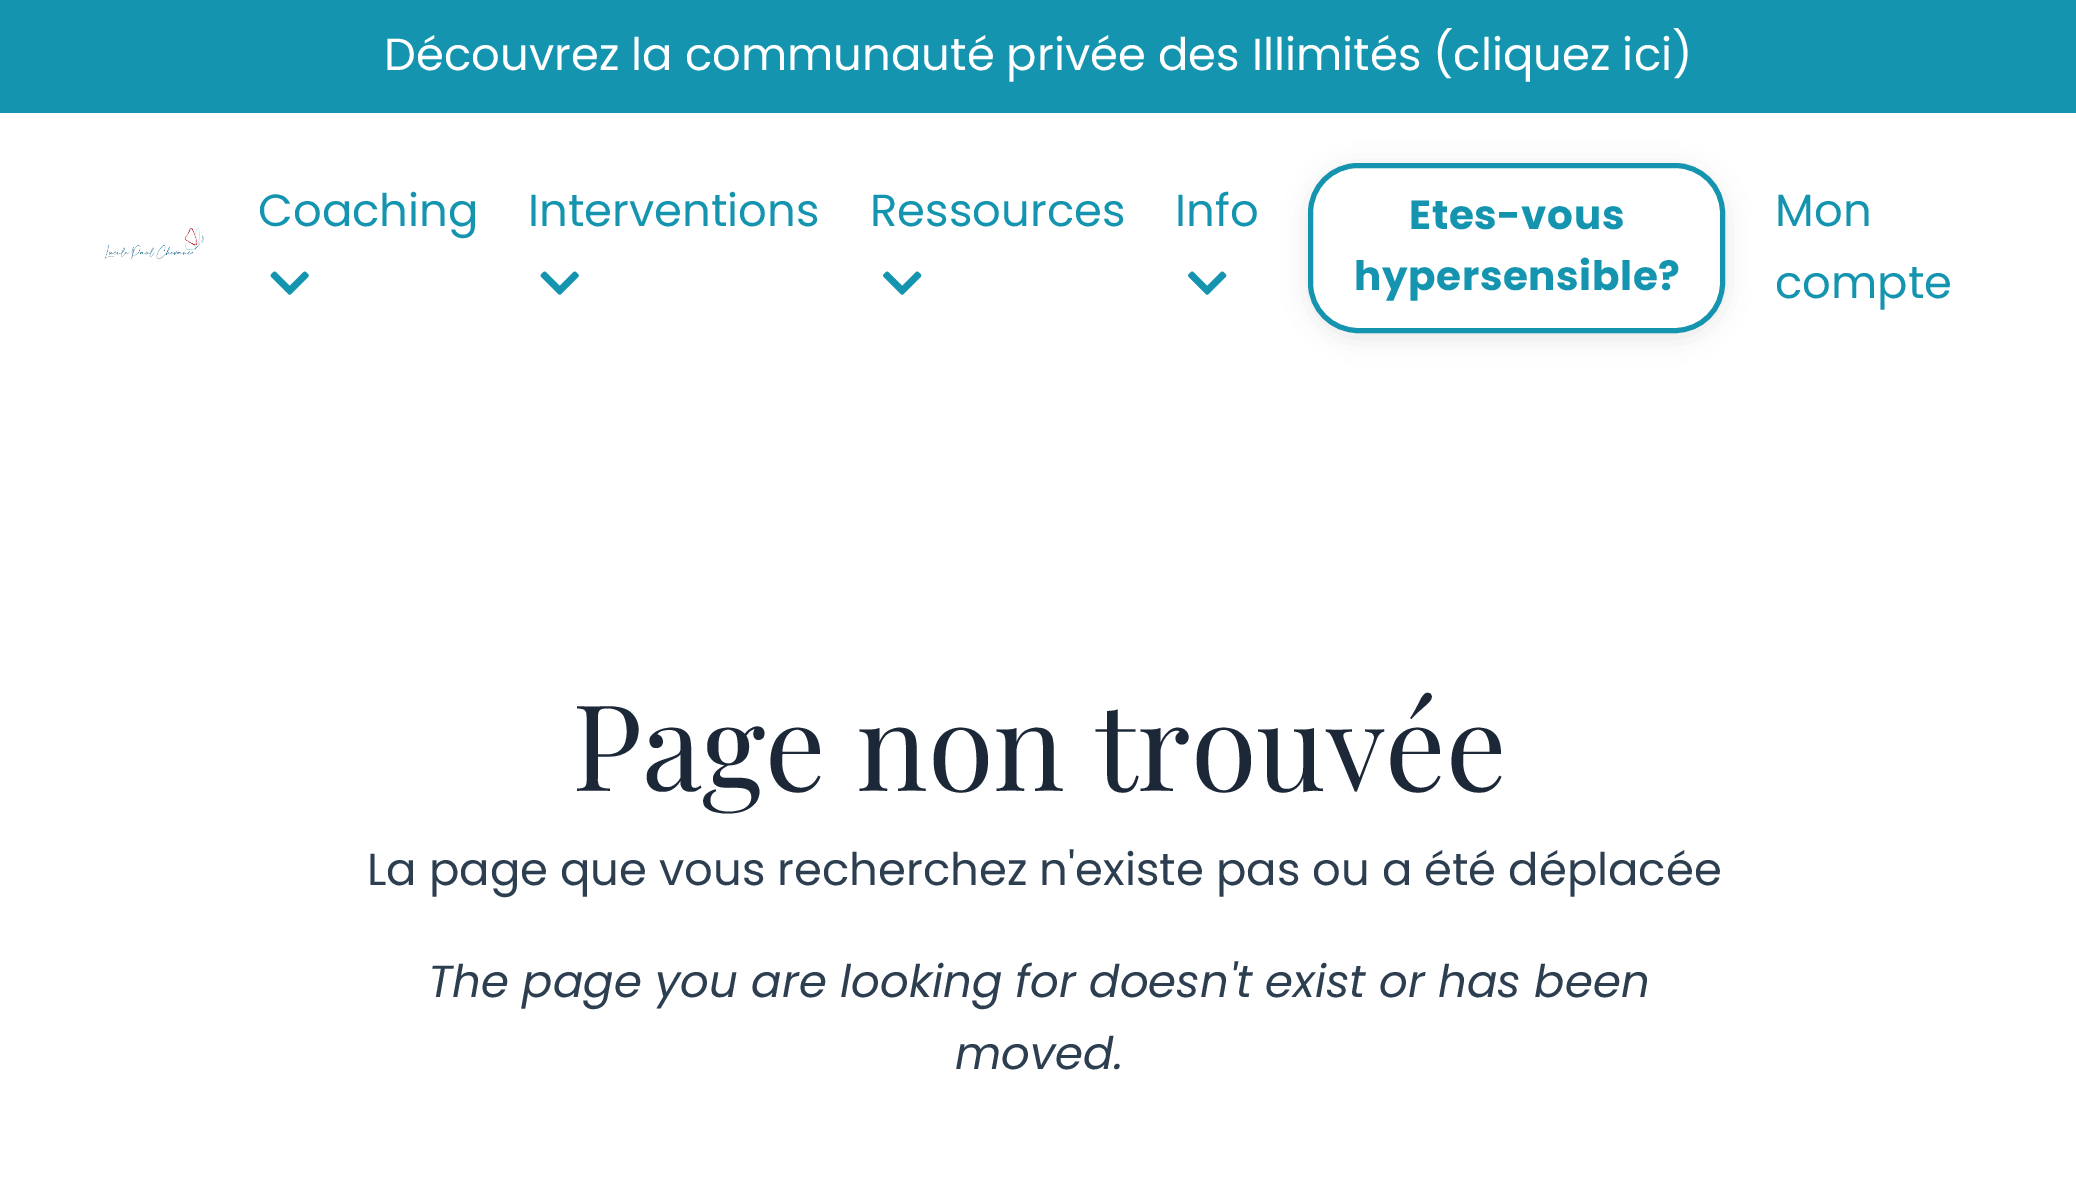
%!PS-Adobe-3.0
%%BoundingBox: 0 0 2076 1183
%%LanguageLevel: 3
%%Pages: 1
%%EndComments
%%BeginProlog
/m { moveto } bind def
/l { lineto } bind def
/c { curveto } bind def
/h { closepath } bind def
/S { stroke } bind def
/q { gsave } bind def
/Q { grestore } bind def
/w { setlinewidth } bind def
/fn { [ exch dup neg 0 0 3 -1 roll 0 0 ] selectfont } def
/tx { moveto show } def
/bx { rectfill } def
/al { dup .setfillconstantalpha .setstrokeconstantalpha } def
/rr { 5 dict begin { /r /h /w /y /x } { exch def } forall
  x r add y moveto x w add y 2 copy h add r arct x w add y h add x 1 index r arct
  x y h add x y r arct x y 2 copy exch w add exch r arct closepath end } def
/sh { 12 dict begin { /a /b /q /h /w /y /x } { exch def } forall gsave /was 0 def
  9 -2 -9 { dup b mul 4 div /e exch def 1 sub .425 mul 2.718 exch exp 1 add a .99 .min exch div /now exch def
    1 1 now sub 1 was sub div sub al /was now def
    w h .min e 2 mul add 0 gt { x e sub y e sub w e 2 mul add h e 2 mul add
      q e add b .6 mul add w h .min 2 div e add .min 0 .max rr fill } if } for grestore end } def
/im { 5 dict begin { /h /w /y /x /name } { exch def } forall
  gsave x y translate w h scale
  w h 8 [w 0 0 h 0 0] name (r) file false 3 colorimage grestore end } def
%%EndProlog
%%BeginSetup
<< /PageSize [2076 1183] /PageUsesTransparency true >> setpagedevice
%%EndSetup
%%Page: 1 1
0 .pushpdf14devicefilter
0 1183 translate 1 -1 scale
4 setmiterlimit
1 setgray
0 0 2076 1183 bx
0.078 0.58 0.686 setrgbcolor
0 0 2076 113 bx
/Poppins-Regular 45 fn
1 setgray
(Découvrez la communauté privée des Illimités \(cliquez ici\)) 384 70 tx
(image0.raw) 104 228 100 32 im
0.078 0.58 0.686 setrgbcolor
(Coaching) 258 226 tx
(image1.raw) 270 271 39 24 im
(Interventions) 528 226 tx
(image1.raw) 540 271 39 24 im
(Ressources) 870 226 tx
(image2.raw) 883 271 39 24 im
(Info) 1175 226 tx
(image2.raw) 1188 271 39 24 im
q
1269 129 m 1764 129 l 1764 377 l 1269 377 l h 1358 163 m 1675 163 l 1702.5 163 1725 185.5 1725 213 c 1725 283 l 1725 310.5 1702.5 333 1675 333 c 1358 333 l 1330.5 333 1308 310.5 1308 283 c 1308 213 l 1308 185.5 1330.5 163 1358 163 c h eoclip newpath
0 setgray
1308 168 417 170 50 12.5 0.1 sh
Q
5 w
1310.5 165.5 412 165 47.5 rr S
/Poppins-Bold 40.5 fn
1409 229 m 0.6 0 (Etes-vous) ashow
1354 290 m 0.6 0 (hypersensible?) ashow
/Poppins-Regular 45 fn
(Mon) 1775 226 tx
(compte) 1775 298 tx
/PlayfairDisplay-Regular 120 fn
0.11 0.157 0.22 setrgbcolor
(Page non trouvée) 572 791 tx
/Poppins-Regular 45 fn
0.173 0.243 0.314 setrgbcolor
(La page que vous recherchez n'existe pas ou a été déplacée) 367 885 tx
/Poppins-Italic 45 fn
(The page you are looking for doesn't exist or has been) 428 997 tx
(moved.) 955 1069 tx
.poppdf14devicefilter showpage
%%EOF
